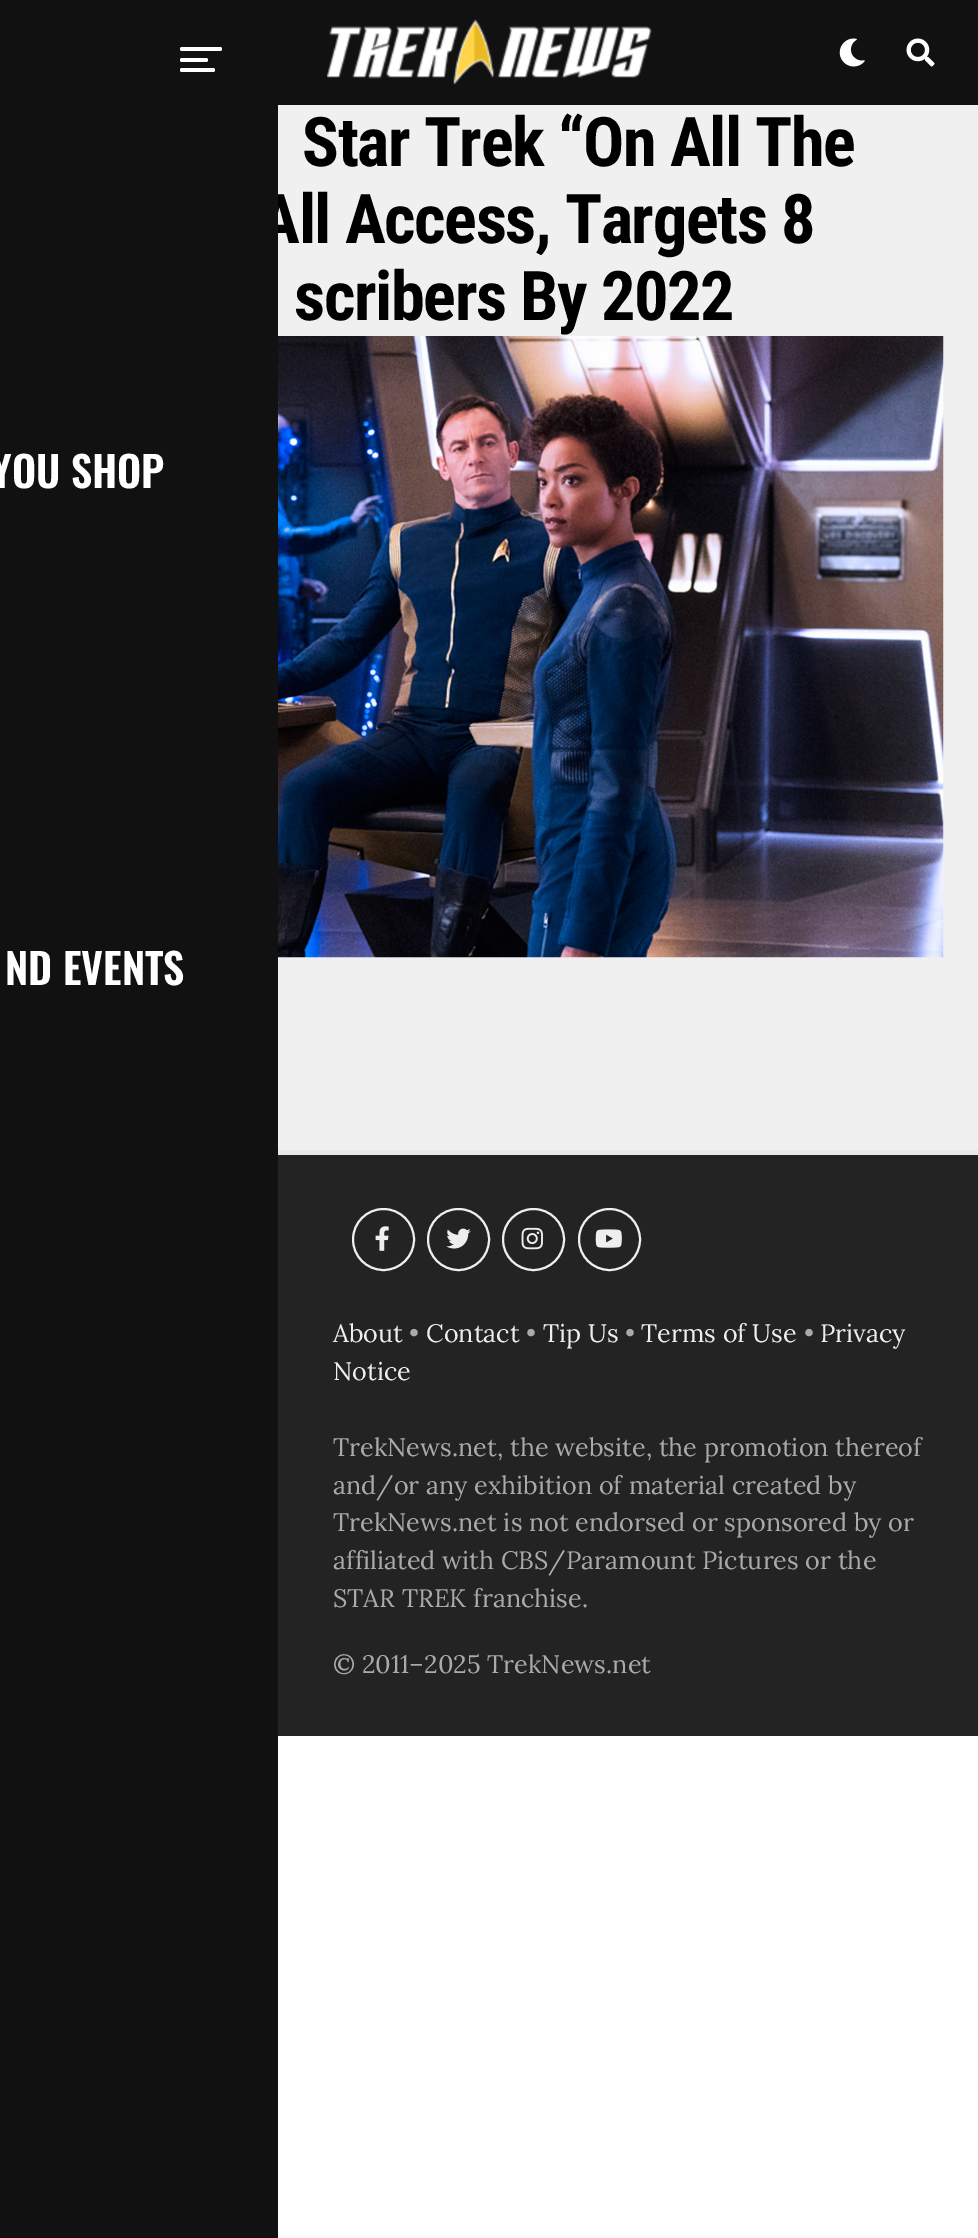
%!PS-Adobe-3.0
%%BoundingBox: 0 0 978 2238
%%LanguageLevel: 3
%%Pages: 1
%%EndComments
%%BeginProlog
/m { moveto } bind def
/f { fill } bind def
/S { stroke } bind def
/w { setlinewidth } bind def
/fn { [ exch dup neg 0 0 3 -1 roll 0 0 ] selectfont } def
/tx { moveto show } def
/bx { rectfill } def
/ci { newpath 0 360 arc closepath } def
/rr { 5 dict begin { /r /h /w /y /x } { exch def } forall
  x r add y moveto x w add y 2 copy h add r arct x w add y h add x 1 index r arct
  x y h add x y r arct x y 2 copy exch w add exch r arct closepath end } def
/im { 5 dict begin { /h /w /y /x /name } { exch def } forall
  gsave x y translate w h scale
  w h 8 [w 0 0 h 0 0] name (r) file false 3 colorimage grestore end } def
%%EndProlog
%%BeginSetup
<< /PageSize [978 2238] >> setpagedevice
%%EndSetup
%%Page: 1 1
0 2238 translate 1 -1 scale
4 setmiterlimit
1 setgray
0 0 978 2238 bx
0.941 setgray
278 105 700 1045 bx
/RobotoCondensed-Bold 68.5 fn
0 setgray
259 243 m -1.4 0 (All Access, Targets 8) ashow
0.067 setgray
0 0 278 2238 bx
1 setgray
180 47 42 4 2 rr f
180 58 28 4 2 rr f
180 68 35 4 2 rr f
/Oswald-SemiBold 42 fn
(YOU SHOP) -9 488 tx
(ND EVENTS) 5 985 tx
0.067 setgray
278 0 700 105 bx
(image0.raw) 327 19 325 66 im
(image1.raw) 839 38 26 29 im
(image2.raw) 906 38 29 29 im
/RobotoCondensed-Bold 68.5 fn
0 setgray
302 166 m -1.4 0 (Star Trek “On All The) ashow
294 320 m -1.4 0 (scribers By 2022) ashow
(image3.raw) 278 336 666 622 im
0.137 setgray
278 1155 700 581 bx
0.914 setgray
278 1150 700 5 bx
0.933 setgray
2 w
383.5 1239.5 30.5 ci S
(image4.raw) 375 1226 14 25 im
458.5 1239.5 30.5 ci S
(image5.raw) 446 1228 25 21 im
533.5 1239.5 30.5 ci S
(image6.raw) 521 1227 22 23 im
609.5 1239.5 30.5 ci S
(image7.raw) 595 1229 27 19 im
/Lora-Regular 25.2 fn
(About) 333 1342 tx
0.667 setgray
(•) 409 1342 tx
0.933 setgray
(Contact) 426 1342 tx
0.667 setgray
(•) 526 1342 tx
0.933 setgray
(Tip Us) 543 1342 tx
0.667 setgray
(•) 625 1342 tx
0.933 setgray
(Terms of Use) 641 1342 tx
0.667 setgray
(•) 804 1342 tx
0.933 setgray
(Privacy) 820 1342 tx
(Notice) 333 1380 tx
0.667 setgray
(TrekNews.net, the website, the promotion thereof) 333 1456 tx
(and/or any exhibition of material created by) 333 1494 tx
(TrekNews.net is not endorsed or sponsored by or) 333 1531 tx
(affiliated with CBS/Paramount Pictures or the) 333 1569 tx
(STAR TREK franchise.) 333 1607 tx
(© 2011–2025 TrekNews.net) 333 1673 tx
showpage
%%EOF
